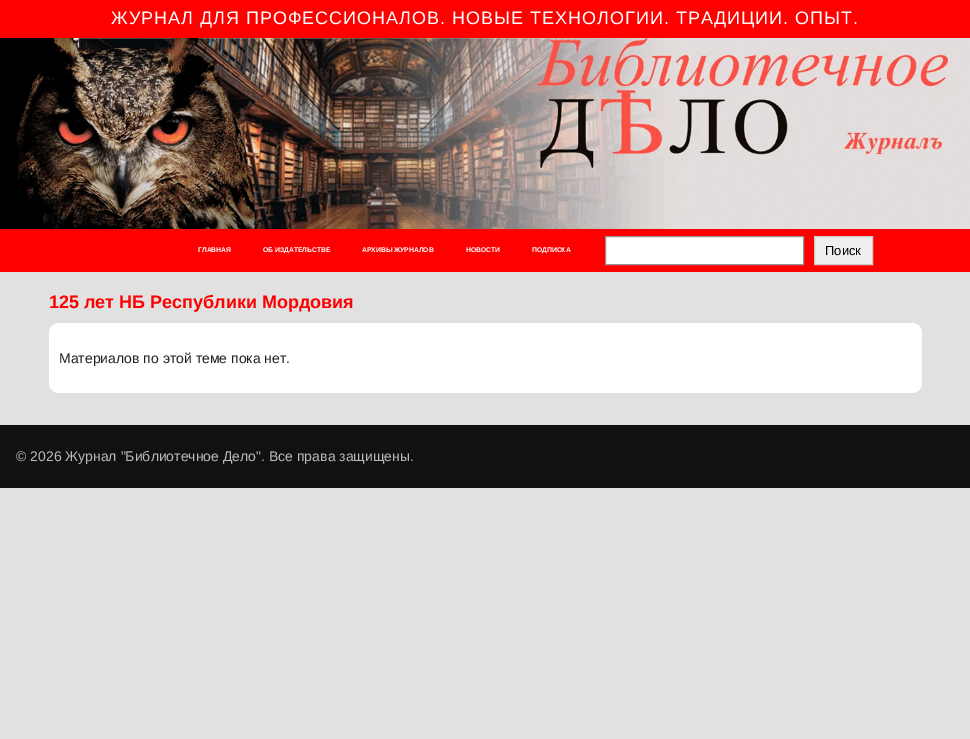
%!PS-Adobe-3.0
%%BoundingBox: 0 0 970 739
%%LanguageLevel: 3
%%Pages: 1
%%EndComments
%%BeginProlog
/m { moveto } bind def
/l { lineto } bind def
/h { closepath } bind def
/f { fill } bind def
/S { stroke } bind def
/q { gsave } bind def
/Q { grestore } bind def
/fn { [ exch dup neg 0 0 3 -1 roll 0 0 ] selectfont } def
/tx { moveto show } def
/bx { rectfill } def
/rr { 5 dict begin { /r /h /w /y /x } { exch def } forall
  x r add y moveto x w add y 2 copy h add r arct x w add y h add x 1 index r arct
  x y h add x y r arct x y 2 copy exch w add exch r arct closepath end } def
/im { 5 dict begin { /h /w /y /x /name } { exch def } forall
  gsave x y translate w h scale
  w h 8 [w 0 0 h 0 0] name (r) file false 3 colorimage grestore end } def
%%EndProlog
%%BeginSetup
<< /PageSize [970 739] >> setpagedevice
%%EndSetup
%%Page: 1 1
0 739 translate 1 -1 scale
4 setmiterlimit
0.882 setgray
0 0 970 739 bx
0.898 setgray
0 272 970 1 bx
0.996 0 0 setrgbcolor
0 0 970 38 bx
/LiberationSans-Regular 18 fn
1 setgray
111 24 m 1 0 (ЖУРНАЛ ДЛЯ ПРОФЕССИОНАЛОВ. НОВЫЕ ТЕХНОЛОГИИ. ТРАДИЦИИ. ОПЫТ.) ashow
(image0.raw) 0 38 970 191 im
0.996 0 0 setrgbcolor
0 229 970 43 bx
/LiberationSans-Bold 6.75 fn
1 setgray
(ГЛАВНАЯ) 198 252 tx
(ОБ ИЗДАТЕЛЬСТВЕ) 263 252 tx
(АРХИВЫ ЖУРНАЛОВ) 362 252 tx
(НОВОСТИ) 466 252 tx
(ПОДПИСКА) 532 252 tx
605.5 236.5 m 803.5 236.5 l 803.5 264.5 l 605.5 264.5 l h q f Q
0.58 setgray
S
0.937 setgray
814.5 236.5 m 872.5 236.5 l 872.5 264.5 l 814.5 264.5 l h q f Q
0.8 setgray
S
/LiberationSans-Regular 13 fn
0 setgray
(Поиск) 825 255 tx
/LiberationSans-Bold 18 fn
0.996 0 0 setrgbcolor
(125 лет НБ Республики Мордовия) 49 308 tx
1 setgray
49 323 873 70 10 rr f
/LiberationSans-Regular 14 fn
0.133 setgray
(Материалов по этой теме пока нет.) 59 363 tx
0.067 setgray
0 425 970 63 bx
0.733 setgray
(© 2026 Журнал "Библиотечное Дело". Все права защищены.) 16 461 tx
showpage
%%EOF
